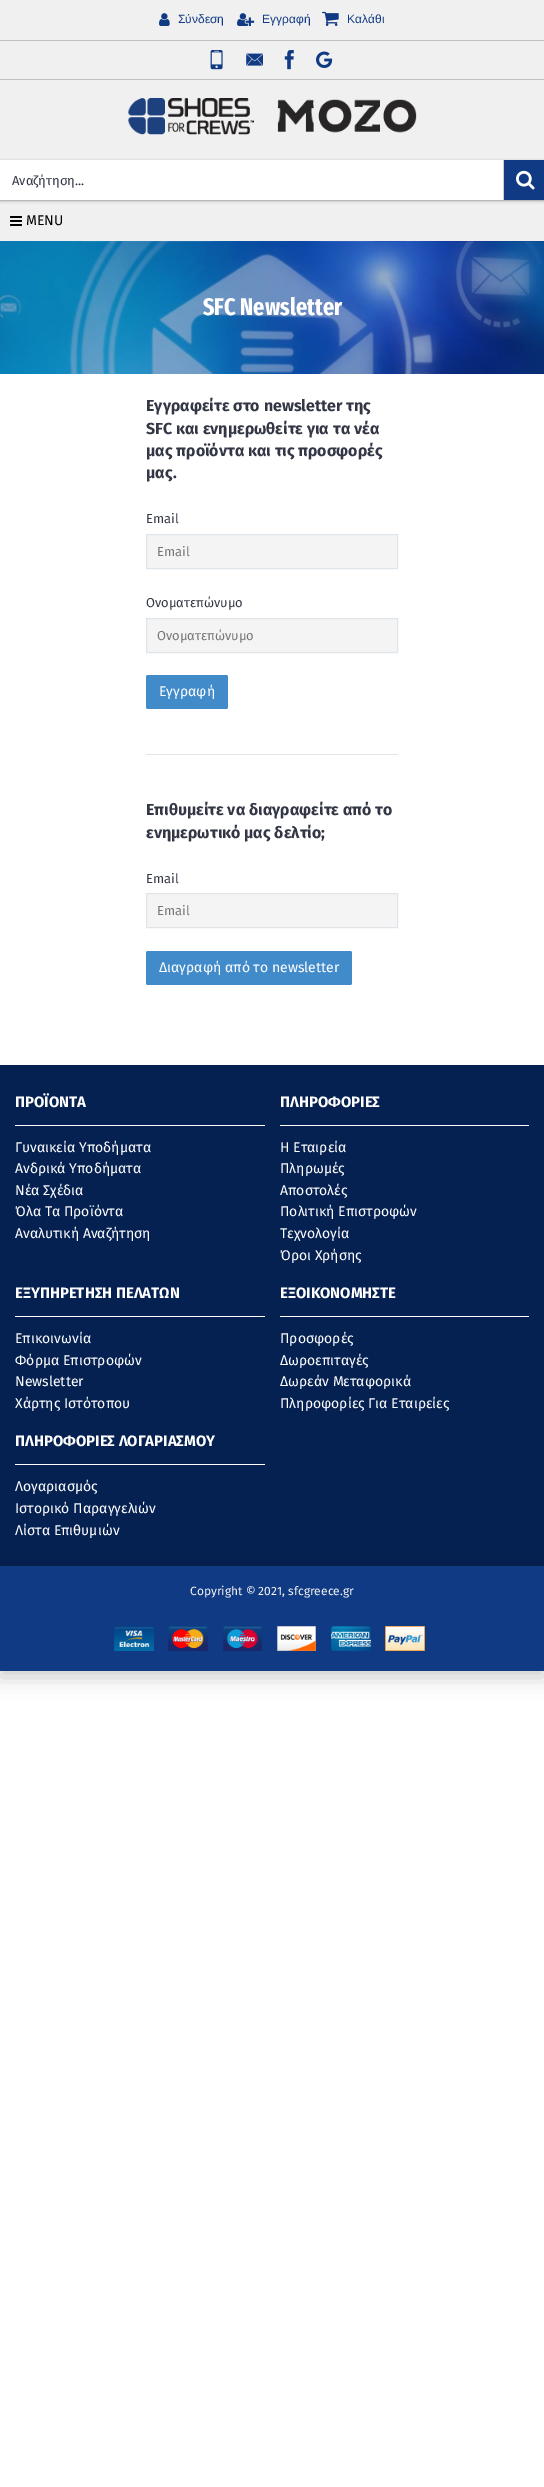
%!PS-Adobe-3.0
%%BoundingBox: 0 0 544 2487
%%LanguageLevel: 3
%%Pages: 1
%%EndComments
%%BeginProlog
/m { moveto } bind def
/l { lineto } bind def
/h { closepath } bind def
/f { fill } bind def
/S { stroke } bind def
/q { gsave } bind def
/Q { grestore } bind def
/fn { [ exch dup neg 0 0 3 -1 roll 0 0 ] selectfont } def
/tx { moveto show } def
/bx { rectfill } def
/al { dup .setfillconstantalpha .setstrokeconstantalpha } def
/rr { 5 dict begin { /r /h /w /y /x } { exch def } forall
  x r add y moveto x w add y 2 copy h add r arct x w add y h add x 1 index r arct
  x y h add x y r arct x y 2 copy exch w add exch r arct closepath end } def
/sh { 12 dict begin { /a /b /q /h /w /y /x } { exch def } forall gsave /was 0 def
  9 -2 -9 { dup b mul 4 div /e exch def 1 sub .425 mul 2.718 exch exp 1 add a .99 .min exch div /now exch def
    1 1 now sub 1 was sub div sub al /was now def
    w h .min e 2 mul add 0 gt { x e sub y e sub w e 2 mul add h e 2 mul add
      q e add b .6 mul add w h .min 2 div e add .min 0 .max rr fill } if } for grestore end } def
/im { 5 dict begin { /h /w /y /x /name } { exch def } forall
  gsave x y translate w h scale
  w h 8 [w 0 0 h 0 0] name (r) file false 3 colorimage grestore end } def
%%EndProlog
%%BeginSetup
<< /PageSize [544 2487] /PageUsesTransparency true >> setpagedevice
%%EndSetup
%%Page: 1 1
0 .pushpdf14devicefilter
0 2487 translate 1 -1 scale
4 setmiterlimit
1 setgray
0 0 544 2487 bx
0.941 setgray
0 0 544 160 bx
(image0.raw) 159 13 11 13 im
/LiberationSans-Regular 12 fn
0.063 0.227 0.518 setrgbcolor
(Σύνδεση) 178 23 tx
(image1.raw) 237 13 18 13 im
(Εγγραφή) 262 23 tx
(image2.raw) 322 11 17 15 im
(Καλάθι) 347 23 tx
0.753 setgray
0 40 544 1 bx
0 79 544 1 bx
(image3.raw) 210 50 13 20 im
(image4.raw) 246 53 17 13 im
(image5.raw) 284 50 10 20 im
(image6.raw) 316 51 17 17 im
(image7.raw) 127 98 127 37 im
(image8.raw) 277 99 140 34 im
0.941 setgray
0 201 544 40 bx
0.863 setgray
0 200 544 1 bx
0 setgray
0 161 544 40 0 1.5 0.25 sh
1 setgray
0 160 503 40 bx
/FiraSans-Regular 13 fn
0.2 0.216 0.271 setrgbcolor
(Αναζήτηση...) 12 185 tx
0.063 0.227 0.518 setrgbcolor
504 160 40 40 bx
0.8 setgray
503 160 1 40 bx
(image9.raw) 516 170 19 20 im
(image10.raw) 10 216 12 10 im
/FiraSans-Regular 14 fn
0 setgray
(MENU) 26 225 tx
(image11.raw) 0 241 544 133 im
/FiraSansExtraCondensed-Bold 24 fn
1 setgray
(SFC Newsletter) 203 315 tx
/FiraSans-Bold 16 fn
0.2 0.216 0.271 setrgbcolor
(Εγγραφείτε στο newsletter της) 146 411 tx
(SFC και ενημερωθείτε για τα νέα) 146 434 tx
(μας προϊόντα και τις προσφορές) 146 456 tx
(μας.) 146 478 tx
/FiraSans-Regular 13 fn
(Email) 146 523 tx
0.957 setgray
146.5 534.5 m 397.5 534.5 l 397.5 568.5 l 146.5 568.5 l h q f Q
0.875 0.898 0.91 setrgbcolor
S
0.459 setgray
(Email) 157 556 tx
0.2 0.216 0.271 setrgbcolor
(Ονοματεπώνυμο) 146 607 tx
0.957 setgray
146.5 618.5 m 397.5 618.5 l 397.5 652.5 l 146.5 652.5 l h q f Q
0.875 0.898 0.91 setrgbcolor
S
0.459 setgray
(Ονοματεπώνυμο) 157 640 tx
0.259 0.545 0.792 setrgbcolor
146 675 82 34 2 rr f
/FiraSans-Regular 14 fn
1 setgray
(Εγγραφή) 159 696 tx
0.894 setgray
146 754 252 1 bx
/FiraSans-Bold 16 fn
0.2 0.216 0.271 setrgbcolor
(Επιθυμείτε να διαγραφείτε από το) 146 815 tx
(ενημερωτικό μας δελτίο;) 146 838 tx
/FiraSans-Regular 13 fn
(Email) 146 883 tx
0.957 setgray
146.5 893.5 m 397.5 893.5 l 397.5 927.5 l 146.5 927.5 l h q f Q
0.875 0.898 0.91 setrgbcolor
S
0.459 setgray
(Email) 157 915 tx
0.259 0.545 0.792 setrgbcolor
146 951 206 34 2 rr f
/FiraSans-Regular 14 fn
1 setgray
(Διαγραφή από το newsletter) 159 972 tx
0.02 0.129 0.322 setrgbcolor
0 1065 544 501 bx
1 setgray
15 1125 250 1 bx
/FiraSans-Bold 15 fn
(ΠΡΟΪΟΝΤΑ) 15 1107 tx
/FiraSans-Regular 14 fn
(Γυναικεία Υποδήματα) 15 1152 tx
(Ανδρικά Υποδήματα) 15 1173 tx
(Νέα Σχέδια) 15 1195 tx
(Όλα Τα Προϊόντα) 15 1216 tx
(Αναλυτική Αναζήτηση) 15 1238 tx
280 1125 249 1 bx
/FiraSans-Bold 15 fn
(ΠΛΗΡΟΦΟΡΙΕΣ) 280 1107 tx
/FiraSans-Regular 14 fn
(Η Εταιρεία) 280 1152 tx
(Πληρωμές) 280 1173 tx
(Αποστολές) 280 1195 tx
(Πολιτική Επιστροφών) 280 1216 tx
(Τεχνολογία) 280 1238 tx
(Όροι Χρήσης) 280 1260 tx
15 1316 250 1 bx
/FiraSans-Bold 15 fn
(ΕΞΥΠΗΡΕΤΗΣΗ ΠΕΛΑΤΩΝ) 15 1298 tx
/FiraSans-Regular 14 fn
(Επικοινωνία) 15 1343 tx
(Φόρμα Επιστροφών) 15 1365 tx
(Newsletter) 15 1386 tx
(Χάρτης Ιστότοπου) 15 1408 tx
280 1316 249 1 bx
/FiraSans-Bold 15 fn
(ΕΞΟΙΚΟΝΟΜΗΣΤΕ) 280 1298 tx
/FiraSans-Regular 14 fn
(Προσφορές) 280 1343 tx
(Δωροεπιταγές) 280 1365 tx
(Δωρεάν Μεταφορικά) 280 1386 tx
(Πληροφορίες Για Εταιρείες) 280 1408 tx
15 1464 250 1 bx
/FiraSans-Bold 15 fn
(ΠΛΗΡΟΦΟΡΙΕΣ ΛΟΓΑΡΙΑΣΜΟΥ) 15 1446 tx
/FiraSans-Regular 14 fn
(Λογαριασμός) 15 1491 tx
(Ιστορικό Παραγγελιών) 15 1513 tx
(Λίστα Επιθυμιών) 15 1535 tx
0 setgray
0 1572 544 105 0 10 0.2 sh
0.063 0.227 0.518 setrgbcolor
0 1566 544 105 bx
/FiraSans-Regular 12 fn
0.957 setgray
(Copyright © 2021, sfcgreece.gr) 190 1595 tx
(image12.raw) 114 1626 40 25 im
(image13.raw) 168 1626 40 25 im
(image14.raw) 223 1626 39 25 im
(image15.raw) 277 1626 39 25 im
(image16.raw) 331 1626 40 25 im
(image17.raw) 385 1626 40 25 im
.poppdf14devicefilter showpage
%%EOF
